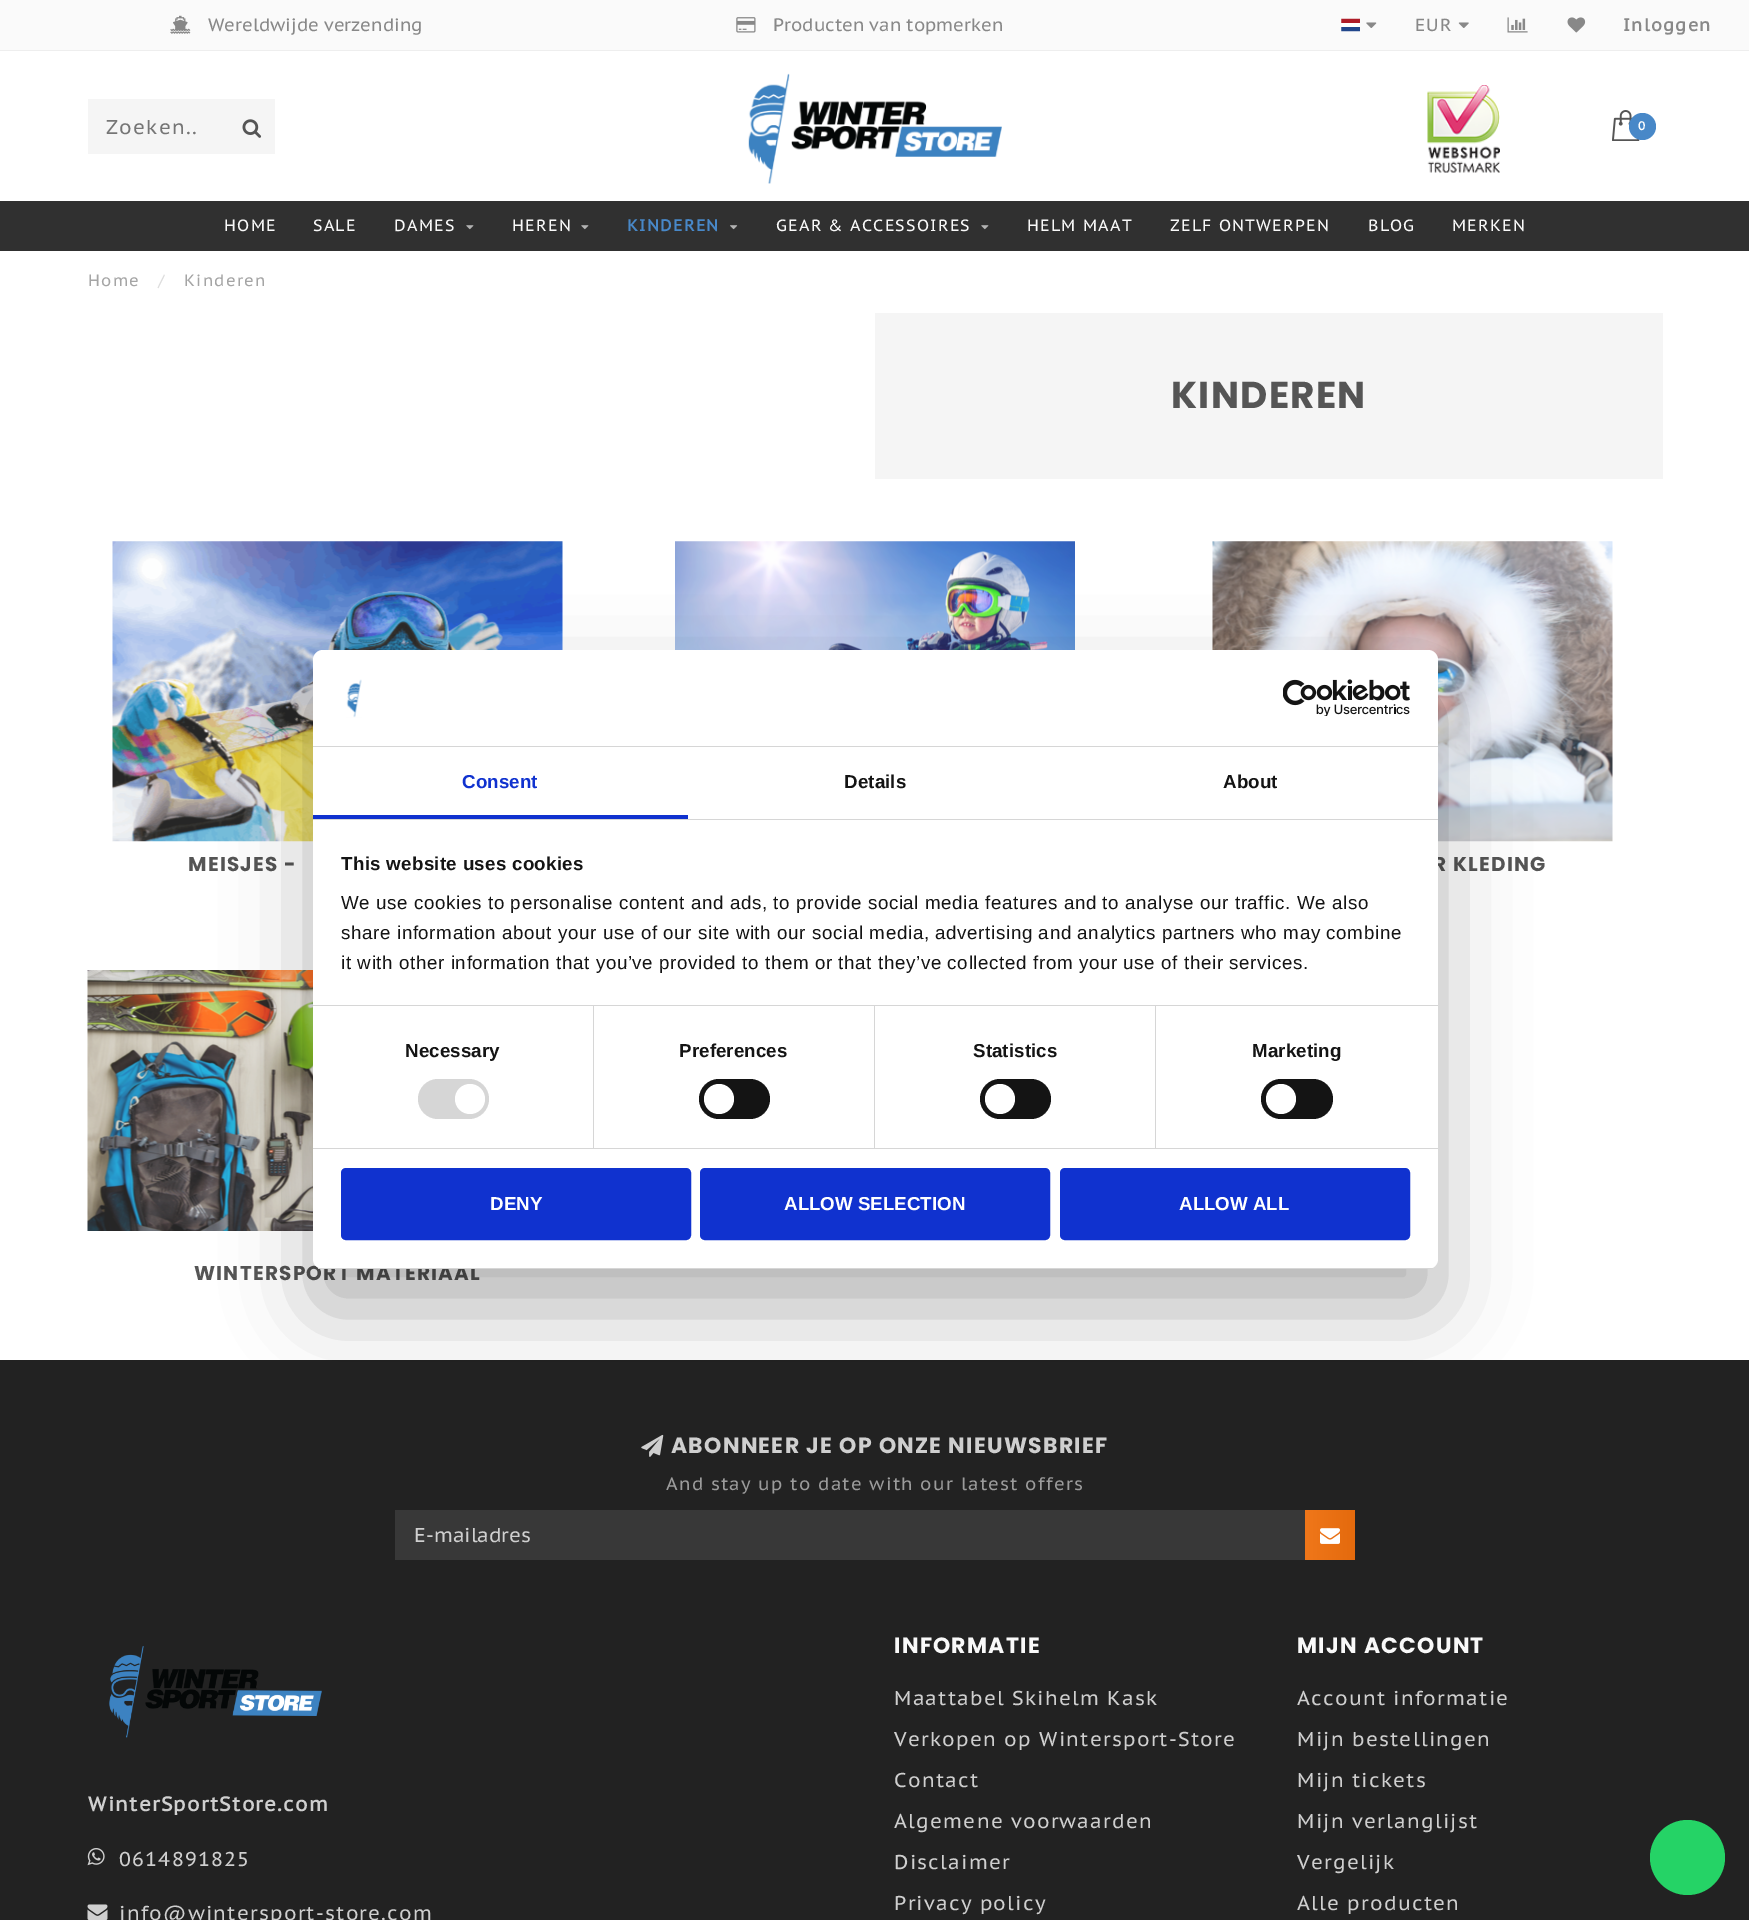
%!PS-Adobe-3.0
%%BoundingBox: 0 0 1749 1920
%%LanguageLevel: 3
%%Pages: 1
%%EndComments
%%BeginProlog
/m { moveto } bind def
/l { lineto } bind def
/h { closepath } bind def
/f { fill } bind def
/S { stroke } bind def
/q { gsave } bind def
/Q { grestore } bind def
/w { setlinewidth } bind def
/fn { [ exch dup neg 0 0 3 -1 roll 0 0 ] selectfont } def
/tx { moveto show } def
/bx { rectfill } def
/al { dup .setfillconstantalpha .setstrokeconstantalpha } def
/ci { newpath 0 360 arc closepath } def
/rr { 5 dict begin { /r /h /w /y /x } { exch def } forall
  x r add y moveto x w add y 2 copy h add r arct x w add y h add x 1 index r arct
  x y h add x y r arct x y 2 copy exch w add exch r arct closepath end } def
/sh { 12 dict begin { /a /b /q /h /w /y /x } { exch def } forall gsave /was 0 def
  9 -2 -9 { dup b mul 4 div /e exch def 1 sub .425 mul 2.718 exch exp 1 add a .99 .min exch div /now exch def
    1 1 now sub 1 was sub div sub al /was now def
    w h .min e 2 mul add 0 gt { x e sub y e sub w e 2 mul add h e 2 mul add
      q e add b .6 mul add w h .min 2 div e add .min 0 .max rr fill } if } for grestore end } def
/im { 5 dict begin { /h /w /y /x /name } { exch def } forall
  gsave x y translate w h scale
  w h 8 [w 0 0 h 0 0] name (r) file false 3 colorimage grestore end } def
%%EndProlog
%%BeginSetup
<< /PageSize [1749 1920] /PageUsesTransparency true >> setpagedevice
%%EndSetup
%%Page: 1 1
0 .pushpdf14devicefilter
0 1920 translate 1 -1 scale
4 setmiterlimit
1 setgray
0 0 1749 1920 bx
0.98 setgray
0 0 1749 50 bx
0.933 setgray
0 50 1749 1 bx
(image0.raw) 170 15 21 19 im
/PTSansCaption-Regular 18 fn
0.533 setgray
(Wereldwijde verzending) 208 31 tx
(image1.raw) 736 17 20 16 im
(Producten van topmerken) 773 31 tx
(image2.raw) 1341 18 19 14 im
(image3.raw) 1366 22 11 6 im
/PTSansCaption-Regular 17.5 fn
1415 31 m 1.25 0 (EUR) ashow
(image4.raw) 1458 22 11 6 im
(image5.raw) 1507 17 21 16 im
(image6.raw) 1567 17 19 16 im
/PTSansCaption-Bold 17.5 fn
1623 31 m 1.25 0 (Inloggen) ashow
0.961 setgray
88 99 187 55 bx
/PTSansCaption-Regular 20 fn
0.459 setgray
106 134 m 1.25 0 (Zoeken..) ashow
(image7.raw) 242 119 20 19 im
(image8.raw) 748 73 254 111 im
(image9.raw) 1427 85 73 88 im
(image10.raw) 1612 110 28 31 im
0.282 0.533 0.784 setrgbcolor
1642.5 126.5 13.5 ci f
/PTSansCaption-Bold 12 fn
1 setgray
1638 130 m 1.25 0 (0) ashow
0.188 setgray
0 201 1749 50 bx
/PTSansCaption-Regular 16.25 fn
0.976 setgray
224 231 m 1.25 0 (HOME) ashow
313 231 m 1.25 0 (SALE) ashow
394 231 m 1.25 0 (DAMES) ashow
(image11.raw) 466 225 8 5 im
512 231 m 1.25 0 (HEREN) ashow
(image11.raw) 581 225 8 5 im
/PTSansCaption-Bold 16.25 fn
0.282 0.533 0.784 setrgbcolor
627 231 m 1.25 0 (KINDEREN) ashow
(image12.raw) 730 225 8 5 im
/PTSansCaption-Regular 16.25 fn
0.976 setgray
776 231 m 1.25 0 (GEAR & ACCESSOIRES) ashow
(image11.raw) 981 225 8 5 im
1027 231 m 1.25 0 (HELM MAAT) ashow
1170 231 m 1.25 0 (ZELF ONTWERPEN) ashow
1368 231 m 1.25 0 (BLOG) ashow
1452 231 m 1.25 0 (MERKEN) ashow
0.647 setgray
88 286 m 1.25 0 (Home) ashow
0.867 setgray
158 286 m 1.25 0 (/) ashow
0.647 setgray
184 286 m 1.25 0 (Kinderen) ashow
0.961 setgray
875 313 788 166 bx
/Poppins-Bold 37.5 fn
0.333 setgray
1171 408 m 1.25 0 (KINDEREN) ashow
(image13.raw) 675 541 400 109 im
(image14.raw) 112 541 451 301 im
/Poppins-Bold 20 fn
188 871 m 1.25 0 (MEISJES -) ashow
(image15.raw) 1212 541 401 301 im
1433 871 m 1.25 0 (R KLEDING) ashow
(image16.raw) 87 970 226 261 im
194 1280 m 1.25 0 (WINTERSPORT MATERIAAL) ashow
0.133 setgray
0 1360 1749 560 bx
(image17.raw) 641 1434 23 23 im
/Poppins-Bold 22 fn
0.812 setgray
671 1453 m 1.25 0 (ABONNEER JE OP ONZE NIEUWSBRIEF) ashow
/PTSansCaption-Regular 18 fn
0.608 setgray
666 1490 m 1.25 0 (And stay up to date with our latest offers) ashow
0.22 setgray
395 1510 910 50 bx
/PTSansCaption-Regular 20 fn
0.812 setgray
(E-mailadres) 414 1542 tx
q 1305 1510 m 1355 1510 l 1355 1560 l 1305 1560 l h clip newpath
<< /ShadingType 2 /ColorSpace /DeviceRGB /Coords [1305 1535 1355 1535] /Extend [true true] /Function << /FunctionType 2 /Domain [0 1] /C0 [0.941 0.467 0.102] /C1 [0.894 0.416 0.051] /N 1 >> >> shfill Q
(image18.raw) 1320 1528 20 16 im
(image19.raw) 109 1646 213 92 im
/PTSansCaption-Bold 20 fn
88 1811 m 1.25 0 (WinterSportStore.com) ashow
(image20.raw) 87 1848 18 18 im
/PTSansCaption-Regular 20 fn
119 1866 m 1.25 0 (0614891825) ashow
(image21.raw) 87 1904 21 16 im
119 1920 m 1.25 0 (info@wintersport-store.com) ashow
/Poppins-Bold 22 fn
0.976 setgray
894 1653 m 1.25 0 (INFORMATIE) ashow
/PTSansCaption-Regular 20 fn
0.812 setgray
894 1705 m 1.25 0 (Maattabel Skihelm Kask) ashow
894 1746 m 1.25 0 (Verkopen op Wintersport-Store) ashow
894 1787 m 1.25 0 (Contact) ashow
894 1828 m 1.25 0 (Algemene voorwaarden) ashow
894 1869 m 1.25 0 (Disclaimer) ashow
894 1910 m 1.25 0 (Privacy policy) ashow
/Poppins-Bold 22 fn
0.976 setgray
1297 1653 m 1.25 0 (MIJN ACCOUNT) ashow
/PTSansCaption-Regular 20 fn
0.812 setgray
1297 1705 m 1.25 0 (Account informatie) ashow
1297 1746 m 1.25 0 (Mijn bestellingen) ashow
1297 1787 m 1.25 0 (Mijn tickets) ashow
1297 1828 m 1.25 0 (Mijn verlanglijst) ashow
1297 1869 m 1.25 0 (Vergelijk) ashow
1297 1910 m 1.25 0 (Alle producten) ashow
0 setgray
313 690 1125 619 10 42.5 0.3 sh
1 setgray
313 650 1125 619 10 rr f
0.839 setgray
313 746 1125 1 bx
(image22.raw) 346 679 16 39 im
(image23.raw) 1283 679 127 37 im
313 819 1125 1 bx
0.063 0.196 0.812 setrgbcolor
313 815 375 4 bx
/LiberationSans-Bold 18.75 fn
462 788 m 0.1 0 (Consent) ashow
0.078 setgray
844 788 m 0.1 0 (Details) ashow
1223 788 m 0.1 0 (About) ashow
0.839 setgray
313 1005 1125 1 bx
0.078 setgray
341 870 m 0.3 0 (This website uses cookies) ashow
/LiberationSans-Regular 18.75 fn
341 909 m 0.62 0 (We use cookies to personalise content and ads, to provide social media features and to analyse our traffic. We also) ashow
341 939 m 0.62 0 (share information about your use of our site with our social media, advertising and analytics partners who may combine) ashow
341 969 m 0.62 0 (it with other information that you’ve provided to them or that they’ve collected from your use of their services.) ashow
0.839 setgray
313 1148 1125 1 bx
593 1006 1 142 bx
/LiberationSans-Bold 18.75 fn
0.078 setgray
405 1057 m 0.1 0 (Necessary) ashow
0.839 setgray
418 1079 71 40 20 rr f
1 setgray
470 1099 15 ci f
0.839 setgray
874 1006 1 142 bx
0.078 setgray
679 1057 m 0.1 0 (Preferences) ashow
699 1079 71 40 20 rr f
1 setgray
719 1099 15 ci f
0.839 setgray
1155 1006 1 142 bx
0.078 setgray
973 1057 m 0.1 0 (Statistics) ashow
980 1079 71 40 20 rr f
1 setgray
1000 1099 15 ci f
0.078 setgray
1252 1057 m 0.1 0 (Marketing) ashow
1261 1079 72 40 20 rr f
1 setgray
1281 1099 15 ci f
q
313 650 1125 619 10 rr clip newpath
0.839 setgray
313 1268 1125 1 bx
Q
0.063 0.196 0.812 setrgbcolor
342.5 1169.5 347 69 3.5 rr q f Q
3 w
S
1 setgray
(DENY) 490 1210 tx
0.063 0.196 0.812 setrgbcolor
701.5 1169.5 347 69 3.5 rr q f Q
S
1 setgray
(ALLOW SELECTION) 784 1210 tx
0.063 0.196 0.812 setrgbcolor
1061.5 1169.5 347 69 3.5 rr q f Q
S
1 setgray
(ALLOW ALL) 1179 1210 tx
0.145 0.827 0.4 setrgbcolor
1687.5 1857.5 37.5 ci f
.poppdf14devicefilter showpage
%%EOF
